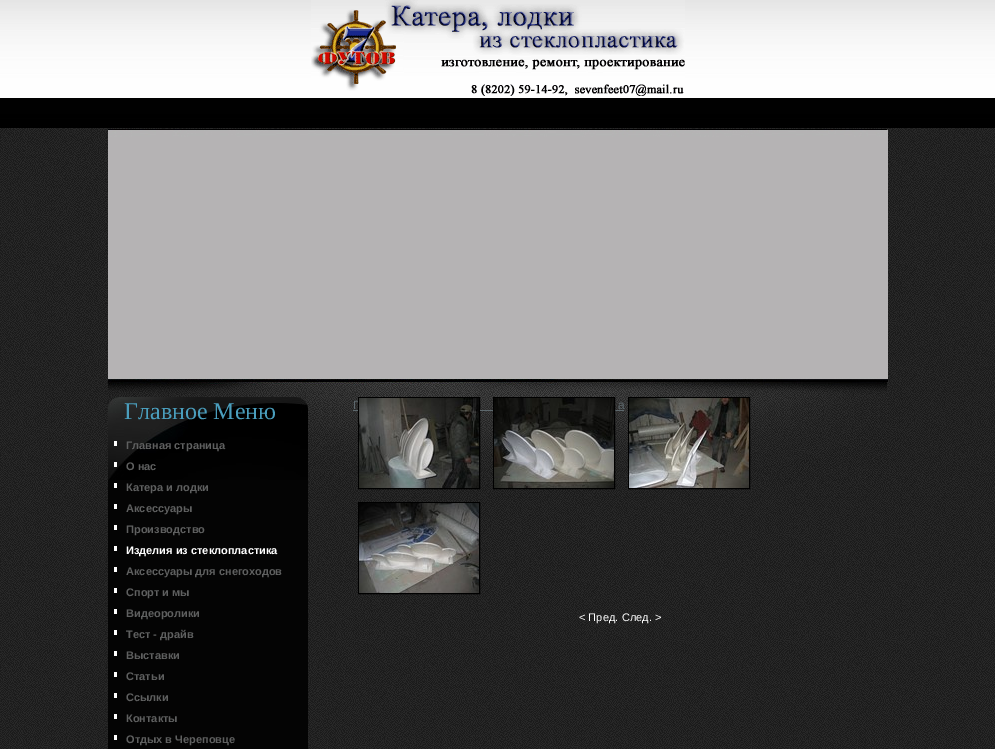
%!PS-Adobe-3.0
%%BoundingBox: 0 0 995 749
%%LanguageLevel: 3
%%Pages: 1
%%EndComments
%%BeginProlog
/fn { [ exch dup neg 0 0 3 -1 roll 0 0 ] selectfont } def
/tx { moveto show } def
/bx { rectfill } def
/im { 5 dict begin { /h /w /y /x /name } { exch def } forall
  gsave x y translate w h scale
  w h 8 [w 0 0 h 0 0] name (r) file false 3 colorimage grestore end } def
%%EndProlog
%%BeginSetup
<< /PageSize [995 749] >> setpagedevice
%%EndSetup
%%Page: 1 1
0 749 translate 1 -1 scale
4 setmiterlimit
1 setgray
0 0 995 749 bx
(image0.raw) 0 128 995 621 im
(image1.raw) 0 0 995 128 im
(image2.raw) 311 0 374 96 im
(image3.raw) 108 129 780 354 im
0.016 setgray
108 480 200 269 bx
(image4.raw) 108 397 200 83 im
/LiberationSerif-Regular 24 fn
0.29 0.62 0.741 setrgbcolor
(Главное Меню) 124 419 tx
1 setgray
114 441 3 5 bx
/LiberationSans-Bold 11 fn
0.373 0.376 0.376 setrgbcolor
(Главная страница) 126 449 tx
1 setgray
114 462 3 5 bx
0.373 0.376 0.376 setrgbcolor
(О нас) 126 470 tx
1 setgray
114 483 3 5 bx
0.373 0.376 0.376 setrgbcolor
(Катера и лодки) 126 491 tx
1 setgray
114 504 3 5 bx
0.373 0.376 0.376 setrgbcolor
(Аксессуары) 126 512 tx
1 setgray
114 525 3 5 bx
0.373 0.376 0.376 setrgbcolor
(Производство) 126 533 tx
1 setgray
114 546 3 5 bx
(Изделия из стеклопластика) 126 554 tx
114 567 3 5 bx
0.373 0.376 0.376 setrgbcolor
(Аксессуары для снегоходов) 126 575 tx
1 setgray
114 588 3 5 bx
0.373 0.376 0.376 setrgbcolor
(Спорт и мы) 126 596 tx
1 setgray
114 609 3 5 bx
0.373 0.376 0.376 setrgbcolor
(Видеоролики) 126 617 tx
1 setgray
114 630 3 5 bx
0.373 0.376 0.376 setrgbcolor
(Тест - драйв) 126 638 tx
1 setgray
114 651 3 5 bx
0.373 0.376 0.376 setrgbcolor
(Выставки) 126 659 tx
1 setgray
114 672 3 5 bx
0.373 0.376 0.376 setrgbcolor
(Статьи) 126 680 tx
1 setgray
114 693 3 5 bx
0.373 0.376 0.376 setrgbcolor
(Ссылки) 126 701 tx
1 setgray
114 714 3 5 bx
0.373 0.376 0.376 setrgbcolor
(Контакты) 126 722 tx
1 setgray
114 735 3 5 bx
0.373 0.376 0.376 setrgbcolor
(Отдых в Череповце) 126 743 tx
/LiberationSans-Regular 12 fn
0.365 0.408 0.427 setrgbcolor
(Г) 353 409 tx
0 setgray
358.5 397.5 121 91 rectstroke
0.365 0.408 0.427 setrgbcolor
480 410 144 1 bx
0 setgray
493.5 397.5 121 91 rectstroke
628.5 397.5 121 91 rectstroke
(image5.raw) 359 398 120 90 im
(image6.raw) 494 398 120 90 im
(image7.raw) 629 398 120 90 im
358.5 502.5 121 91 rectstroke
(image8.raw) 359 503 120 90 im
0.365 0.408 0.427 setrgbcolor
353 410 5 1 bx
(а) 618 409 tx
/LiberationSans-Regular 11 fn
1 setgray
(< Пред.) 579 621 tx
(След. >) 622 621 tx
showpage
%%EOF
